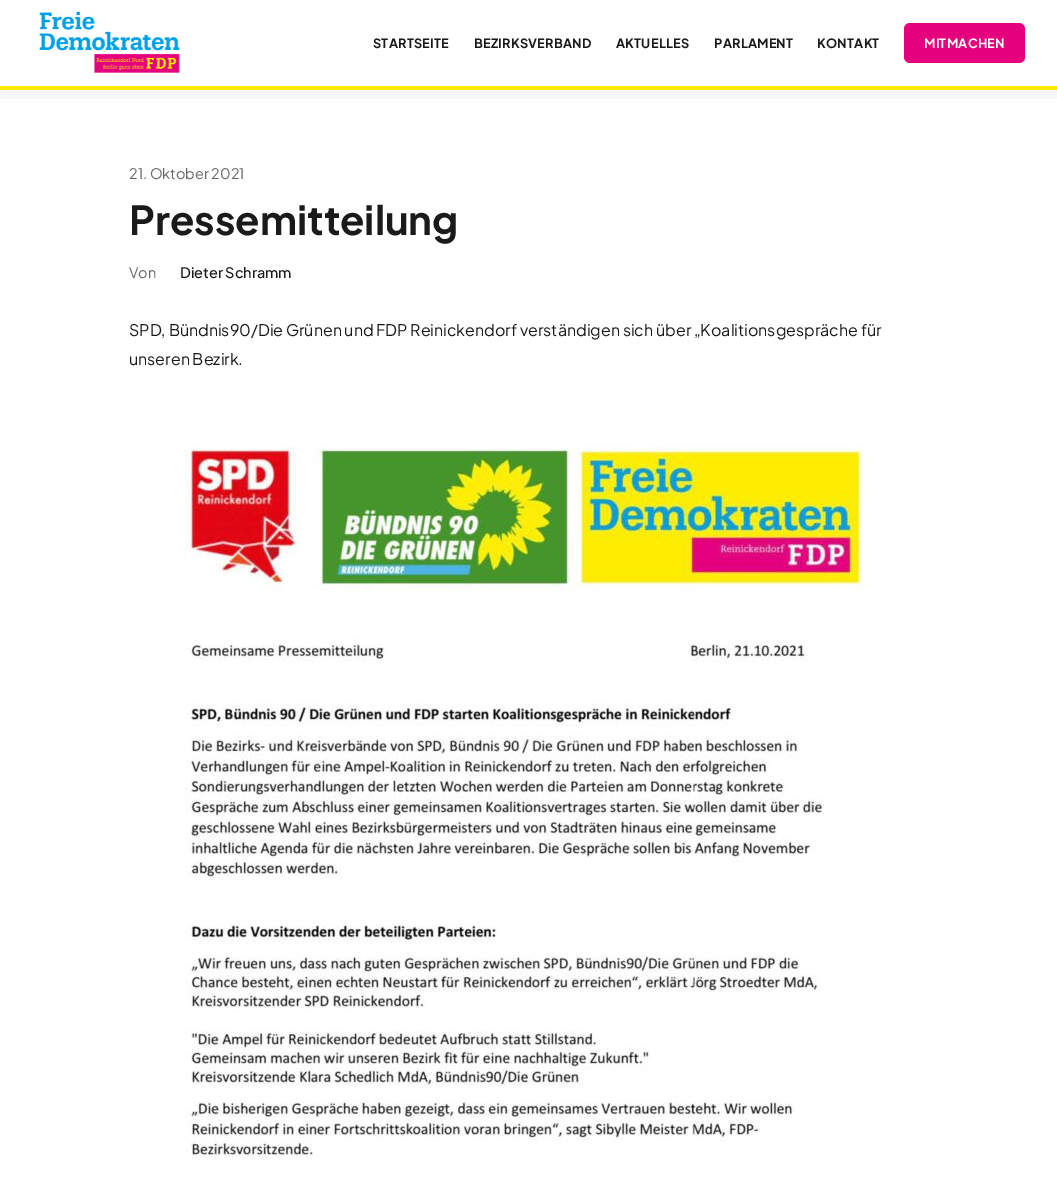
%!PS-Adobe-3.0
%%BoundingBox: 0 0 1057 1203
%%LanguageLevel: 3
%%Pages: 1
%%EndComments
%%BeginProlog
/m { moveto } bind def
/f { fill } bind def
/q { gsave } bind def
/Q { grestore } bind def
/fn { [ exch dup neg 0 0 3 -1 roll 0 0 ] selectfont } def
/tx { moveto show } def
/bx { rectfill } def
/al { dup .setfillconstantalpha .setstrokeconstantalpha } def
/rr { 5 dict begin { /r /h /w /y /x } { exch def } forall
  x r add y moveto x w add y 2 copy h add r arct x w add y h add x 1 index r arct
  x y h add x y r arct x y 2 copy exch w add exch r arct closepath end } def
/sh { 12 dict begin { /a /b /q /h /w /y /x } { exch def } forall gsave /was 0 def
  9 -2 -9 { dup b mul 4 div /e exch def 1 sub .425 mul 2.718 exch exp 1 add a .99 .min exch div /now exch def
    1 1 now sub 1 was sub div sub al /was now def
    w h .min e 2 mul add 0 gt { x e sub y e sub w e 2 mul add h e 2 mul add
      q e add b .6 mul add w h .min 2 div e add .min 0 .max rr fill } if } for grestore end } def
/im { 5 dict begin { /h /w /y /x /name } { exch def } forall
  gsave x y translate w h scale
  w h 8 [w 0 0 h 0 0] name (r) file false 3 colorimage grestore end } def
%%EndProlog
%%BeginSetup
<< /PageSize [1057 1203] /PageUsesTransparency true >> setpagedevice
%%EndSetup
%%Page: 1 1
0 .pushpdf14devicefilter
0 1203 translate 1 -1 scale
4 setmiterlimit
1 setgray
0 0 1057 1203 bx
q
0 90 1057 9 rectclip
0 setgray
0 2 1057 90 0 10 0.08 sh
Q
1 0.929 0 setrgbcolor
0 86 1057 4 bx
(image0.raw) 39 11 141 62 im
/PlusJakartaSans-Bold 12.75 fn
0.102 setgray
373 48 m 0.25 0 (STARTSEITE) ashow
474 48 m 0.25 0 (BEZIRKSVERBAND) ashow
616 48 m 0.25 0 (AKTUELLES) ashow
714 48 m 0.25 0 (PARLAMENT) ashow
817 48 m 0.25 0 (KONTAKT) ashow
0.898 0 0.49 setrgbcolor
904 23 121 40 6 rr f
1 setgray
924 48 m 0.25 0 (MITMACHEN) ashow
/PlusJakartaSans-Regular 14.5 fn
0.4 setgray
(21. Oktober 2021) 129 179 tx
/PlusJakartaSans-Bold 40 fn
0.102 setgray
(Pressemitteilung) 129 235 tx
/PlusJakartaSans-Regular 14.5 fn
0.4 setgray
(Von) 129 278 tx
/PlusJakartaSans-Medium 14.5 fn
0.102 setgray
(Dieter Schramm) 180 278 tx
/PlusJakartaSans-Regular 16 fn
(SPD, Bündnis90/Die Grünen und FDP Reinickendorf verständigen sich über „Koalitionsgespräche für) 129 336 tx
(unseren Bezirk.) 129 365 tx
(image1.raw) 185 446 686 712 im
.poppdf14devicefilter showpage
%%EOF
